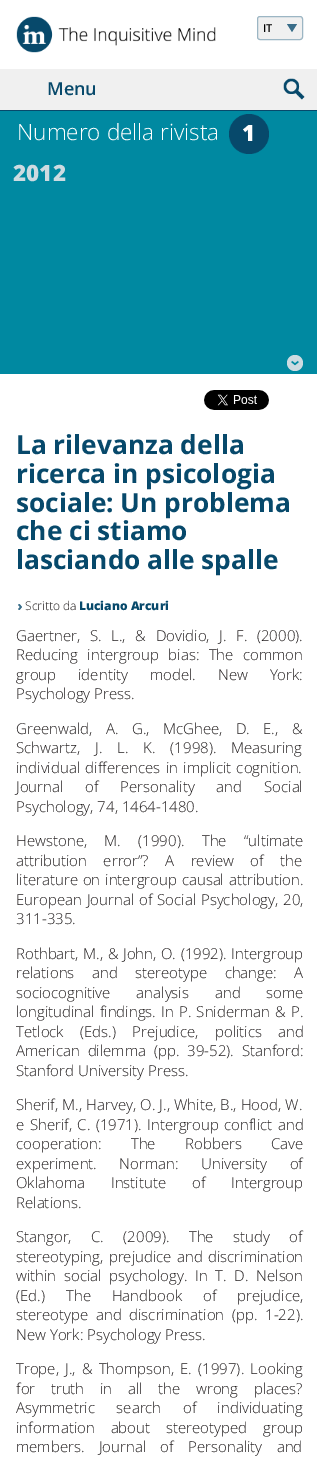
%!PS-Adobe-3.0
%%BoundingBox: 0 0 317 1458
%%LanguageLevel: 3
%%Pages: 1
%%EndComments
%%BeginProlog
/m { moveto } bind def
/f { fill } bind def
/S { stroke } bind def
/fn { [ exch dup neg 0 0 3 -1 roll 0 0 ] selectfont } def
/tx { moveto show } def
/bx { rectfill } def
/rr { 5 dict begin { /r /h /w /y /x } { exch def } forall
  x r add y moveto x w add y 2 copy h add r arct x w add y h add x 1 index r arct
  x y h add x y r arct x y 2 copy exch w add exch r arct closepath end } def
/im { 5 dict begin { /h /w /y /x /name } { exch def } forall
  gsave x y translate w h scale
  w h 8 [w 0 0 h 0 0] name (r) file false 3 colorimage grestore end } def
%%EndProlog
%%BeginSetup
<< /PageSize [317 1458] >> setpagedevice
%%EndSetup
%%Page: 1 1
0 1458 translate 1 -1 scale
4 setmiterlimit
1 setgray
0 0 317 1458 bx
(image0.raw) 16 16 200 37 im
0.941 setgray
257 16 46 24 3 rr f
(image1.raw) 287 24 10 8 im
0.612 0.714 0.769 setrgbcolor
257.5 16.5 45 23 2.5 rr S
/OpenSans-SemiBold 11 fn
0 setgray
(IT) 263 32 tx
0.941 setgray
0 69 317 41 bx
0.027 0.286 0.42 setrgbcolor
0 110 317 1 bx
/OpenSans-SemiBold 18 fn
(Menu) 47 95 tx
(image2.raw) 283 78 22 22 im
0 0.537 0.631 setrgbcolor
0 111 317 263 bx
/OpenSans-Light 22.5 fn
1 setgray
(Numero della rivista) 17 140 tx
(image3.raw) 229 114 40 40 im
/OpenSans-ExtraBold 22.5 fn
(1) 242 141 tx
0.804 0.859 0.882 setrgbcolor
(2012) 13 181 tx
(image4.raw) 287 355 16 16 im
(image5.raw) 204 390 65 20 im
/OpenSans-Bold 26.25 fn
0.027 0.286 0.42 setrgbcolor
(La rilevanza della) 16 454 tx
(ricerca in psicologia) 16 483 tx
(sociale: Un problema) 16 512 tx
(che ci stiamo) 16 540 tx
(lasciando alle spalle) 16 569 tx
(image6.raw) 18 604 4 6 im
/OpenSans-Light 12 fn
0.137 0.122 0.125 setrgbcolor
(Scritto da) 25 610 tx
/OpenSans-ExtraBold 12 fn
0.027 0.286 0.42 setrgbcolor
(Luciano Arcuri) 79 610 tx
/OpenSans-Light 15 fn
0.137 0.122 0.125 setrgbcolor
16 641 m 5.75 0 32 (Gaertner, S. L., & Dovidio, J. F. \(2000\).) widthshow
16 660 m 5.5 0 32 (Reducing intergroup bias: The common) widthshow
16 680 m 18 0 32 (group identity model. New York:) widthshow
(Psychology Press.) 16 699 tx
16 734 m 9.5 0 32 (Greenwald, A. G., McGhee, D. E., &) widthshow
16 753 m 11 0 32 (Schwartz, J. L. K. \(1998\). Measuring) widthshow
16 773 m 1.5 0 32 (individual differences in implicit cognition.) widthshow
16 792 m 18 0 32 (Journal of Personality and Social) widthshow
(Psychology, 74, 1464-1480.) 16 812 tx
16 846 m 13.5 0 32 (Hewstone, M. \(1990\). The “ultimate) widthshow
16 866 m 12.5 0 32 (attribution error”? A review of the) widthshow
16 885 m 1 0 32 (literature on intergroup causal attribution.) widthshow
16 905 m 1 0 32 (European Journal of Social Psychology, 20,) widthshow
(311-335.) 16 924 tx
16 959 m 0.75 0 32 (Rothbart, M., & John, O. \(1992\). Intergroup) widthshow
16 978 m 13.5 0 32 (relations and stereotype change: A) widthshow
16 998 m 22 0 32 (sociocognitive analysis and some) widthshow
16 1017 m 1.25 0 32 (longitudinal findings. In P. Sniderman & P.) widthshow
16 1037 m 12.5 0 32 (Tetlock \(Eds.\) Prejudice, politics and) widthshow
16 1056 m 4 0 32 (American dilemma \(pp. 39-52\). Stanford:) widthshow
(Stanford University Press.) 16 1076 tx
16 1110 m 0.25 0 32 (Sherif, M., Harvey, O. J., White, B., Hood, W.) widthshow
16 1130 m 1.5 0 32 (e Sherif, C. \(1971\). Intergroup conflict and) widthshow
16 1149 m 25.5 0 32 (cooperation: The Robbers Cave) widthshow
16 1169 m 18.5 0 32 (experiment. Norman: University of) widthshow
16 1188 m 22 0 32 (Oklahoma Institute of Intergroup) widthshow
(Relations.) 16 1208 tx
16 1242 m 15.5 0 32 (Stangor, C. \(2009\). The study of) widthshow
16 1262 m 1.5 0 32 (stereotyping, prejudice and discrimination) widthshow
16 1281 m 3.75 0 32 (within social psychology. In T. D. Nelson) widthshow
16 1301 m 17 0 32 (\(Ed.\) The Handbook of prejudice,) widthshow
16 1320 m 3.75 0 32 (stereotype and discrimination \(pp. 1-22\).) widthshow
(New York: Psychology Press.) 16 1340 tx
16 1374 m 2.25 0 32 (Trope, J., & Thompson, E. \(1997\). Looking) widthshow
16 1394 m 11.75 0 32 (for truth in all the wrong places?) widthshow
16 1413 m 17.5 0 32 (Asymmetric search of individuating) widthshow
16 1433 m 12 0 32 (information about stereotyped group) widthshow
16 1452 m 10.5 0 32 (members. Journal of Personality and) widthshow
showpage
%%EOF
